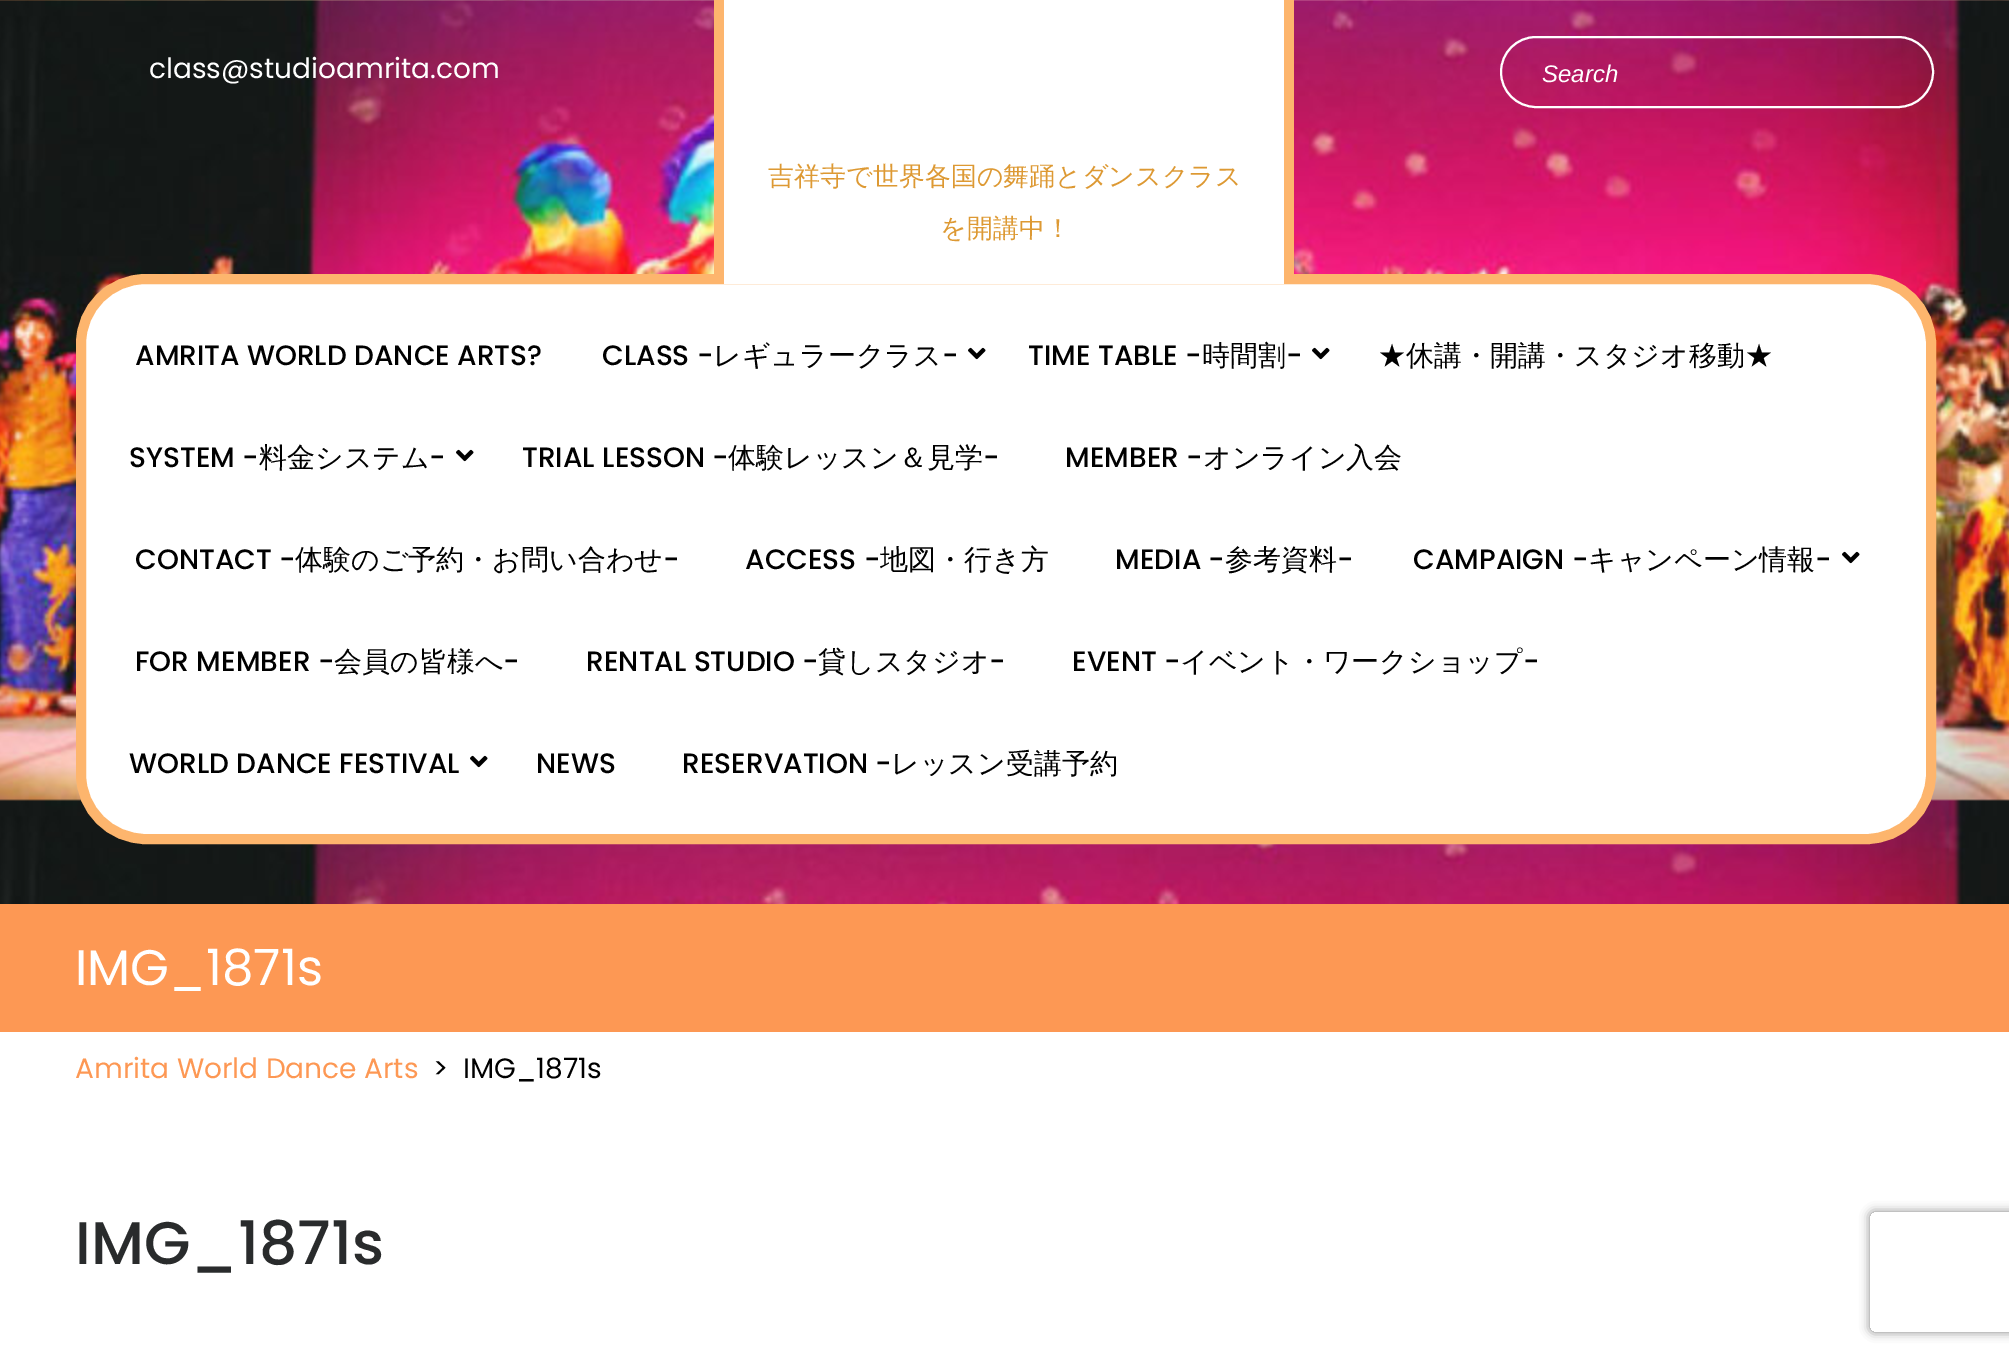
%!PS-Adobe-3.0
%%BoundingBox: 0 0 2009 1360
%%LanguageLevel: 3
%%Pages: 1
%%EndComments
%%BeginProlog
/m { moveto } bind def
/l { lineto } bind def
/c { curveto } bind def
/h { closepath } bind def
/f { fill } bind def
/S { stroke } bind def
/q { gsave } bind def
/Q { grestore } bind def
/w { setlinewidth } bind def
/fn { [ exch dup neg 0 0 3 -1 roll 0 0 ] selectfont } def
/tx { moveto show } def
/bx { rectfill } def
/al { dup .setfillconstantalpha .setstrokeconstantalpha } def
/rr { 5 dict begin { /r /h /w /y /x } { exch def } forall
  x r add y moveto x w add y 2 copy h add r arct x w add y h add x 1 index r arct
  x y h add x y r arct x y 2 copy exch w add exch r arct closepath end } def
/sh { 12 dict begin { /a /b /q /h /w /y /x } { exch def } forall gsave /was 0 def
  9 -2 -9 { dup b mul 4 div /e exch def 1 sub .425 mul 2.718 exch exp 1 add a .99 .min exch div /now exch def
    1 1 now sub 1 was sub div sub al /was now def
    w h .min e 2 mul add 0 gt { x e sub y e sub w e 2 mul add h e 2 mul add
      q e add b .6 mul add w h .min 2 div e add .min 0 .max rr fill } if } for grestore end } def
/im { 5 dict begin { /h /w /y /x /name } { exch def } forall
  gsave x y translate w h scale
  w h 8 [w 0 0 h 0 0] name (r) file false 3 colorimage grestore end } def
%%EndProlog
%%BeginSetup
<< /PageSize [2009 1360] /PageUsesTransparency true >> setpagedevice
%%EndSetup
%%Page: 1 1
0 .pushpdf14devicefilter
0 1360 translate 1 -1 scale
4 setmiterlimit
1 setgray
0 0 2009 1360 bx
(image0.raw) 0 0 2009 904 im
/Poppins-Regular 28 fn
(class@studioamrita.com) 149 78 tx
2 w
1501 37 432 70 35 rr S
/LiberationSans-Italic 24 fn
(Search) 1542 82 tx
81 279 1850 560 65 rr q f Q
0.992 0.71 0.427 setrgbcolor
10 w
S
1 setgray
724 0 560 284 bx
0.992 0.71 0.427 setrgbcolor
1284 0 10 274 bx
714 0 10 274 bx
/WenQuanYiZenHei-Medium 26 fn
0.867 0.6 0.2 setrgbcolor
(吉祥寺で世界各国の舞踊とダンスクラス) 768 185 tx
(を開講中！) 940 237 tx
/Poppins-Medium 28 fn
0 setgray
(AMRITA WORLD DANCE ARTS?) 135 365 tx
(CLASS -) 602 365 tx
/WenQuanYiZenHei-Medium 28 fn
(レギュラークラス) 713 365 tx
/Poppins-Medium 28 fn
(-) 942 365 tx
(image1.raw) 968 347 18 13 im
(TIME TABLE -) 1028 365 tx
/WenQuanYiZenHei-Medium 28 fn
(時間割) 1202 365 tx
/Poppins-Medium 28 fn
(-) 1286 365 tx
(image1.raw) 1312 347 18 13 im
/WenQuanYiZenHei-Medium 28 fn
(★休講・開講・スタジオ移動★) 1378 365 tx
/Poppins-Medium 28 fn
(SYSTEM -) 129 467 tx
/WenQuanYiZenHei-Medium 28 fn
(料金システム) 259 467 tx
/Poppins-Medium 28 fn
(-) 429 467 tx
(image1.raw) 456 449 18 13 im
(TRIAL LESSON -) 522 467 tx
/WenQuanYiZenHei-Medium 28 fn
(体験レッスン＆見学) 728 467 tx
/Poppins-Medium 28 fn
(-) 983 467 tx
(MEMBER -) 1065 467 tx
/WenQuanYiZenHei-Medium 28 fn
(オンライン入会) 1203 467 tx
/Poppins-Medium 28 fn
(CONTACT -) 135 569 tx
/WenQuanYiZenHei-Medium 28 fn
(体験のご予約・お問い合わせ) 295 569 tx
/Poppins-Medium 28 fn
(-) 663 569 tx
(ACCESS -) 745 569 tx
/WenQuanYiZenHei-Medium 28 fn
(地図・行き方) 880 569 tx
/Poppins-Medium 28 fn
(MEDIA -) 1115 569 tx
/WenQuanYiZenHei-Medium 28 fn
(参考資料) 1225 569 tx
/Poppins-Medium 28 fn
(-) 1337 569 tx
(CAMPAIGN -) 1413 569 tx
/WenQuanYiZenHei-Medium 28 fn
(キャンペーン情報) 1588 569 tx
/Poppins-Medium 28 fn
(-) 1815 569 tx
(image1.raw) 1842 551 18 13 im
(FOR MEMBER -) 135 671 tx
/WenQuanYiZenHei-Medium 28 fn
(会員の皆様へ) 334 671 tx
/Poppins-Medium 28 fn
(-) 503 671 tx
(RENTAL STUDIO -) 586 671 tx
/WenQuanYiZenHei-Medium 28 fn
(貸しスタジオ) 818 671 tx
/Poppins-Medium 28 fn
(-) 989 671 tx
(EVENT -) 1072 671 tx
/WenQuanYiZenHei-Medium 28 fn
(イベント・ワークショップ) 1180 671 tx
/Poppins-Medium 28 fn
(-) 1523 671 tx
(WORLD DANCE FESTIVAL) 129 773 tx
(image1.raw) 470 755 18 13 im
(NEWS) 536 773 tx
(RESERVATION -) 682 773 tx
/WenQuanYiZenHei-Medium 28 fn
(レッスン受講予約) 891 773 tx
0.992 0.596 0.329 setrgbcolor
0 904 2009 128 bx
/Poppins-Regular 50 fn
1 setgray
(IMG_1871s) 75 985 tx
/Poppins-Regular 28 fn
0.992 0.596 0.329 setrgbcolor
(Amrita World Dance Arts) 75 1078 tx
0 setgray
(>) 433 1078 tx
(IMG_1871s) 463 1078 tx
/Poppins-Medium 60 fn
0.161 0.169 0.173 setrgbcolor
(IMG_1871s) 75 1264 tx
q
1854 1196 m 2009 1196 l 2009 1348 l 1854 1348 l h 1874 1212 m 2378 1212 l 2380 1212 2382 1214 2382 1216 c 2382 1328 l 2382 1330 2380 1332 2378 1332 c 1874 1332 l 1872 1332 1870 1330 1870 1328 c 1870 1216 l 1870 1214 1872 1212 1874 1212 c h eoclip newpath
0.502 setgray
1870 1212 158 120 4 5 1 sh
Q
.poppdf14devicefilter showpage
%%EOF
